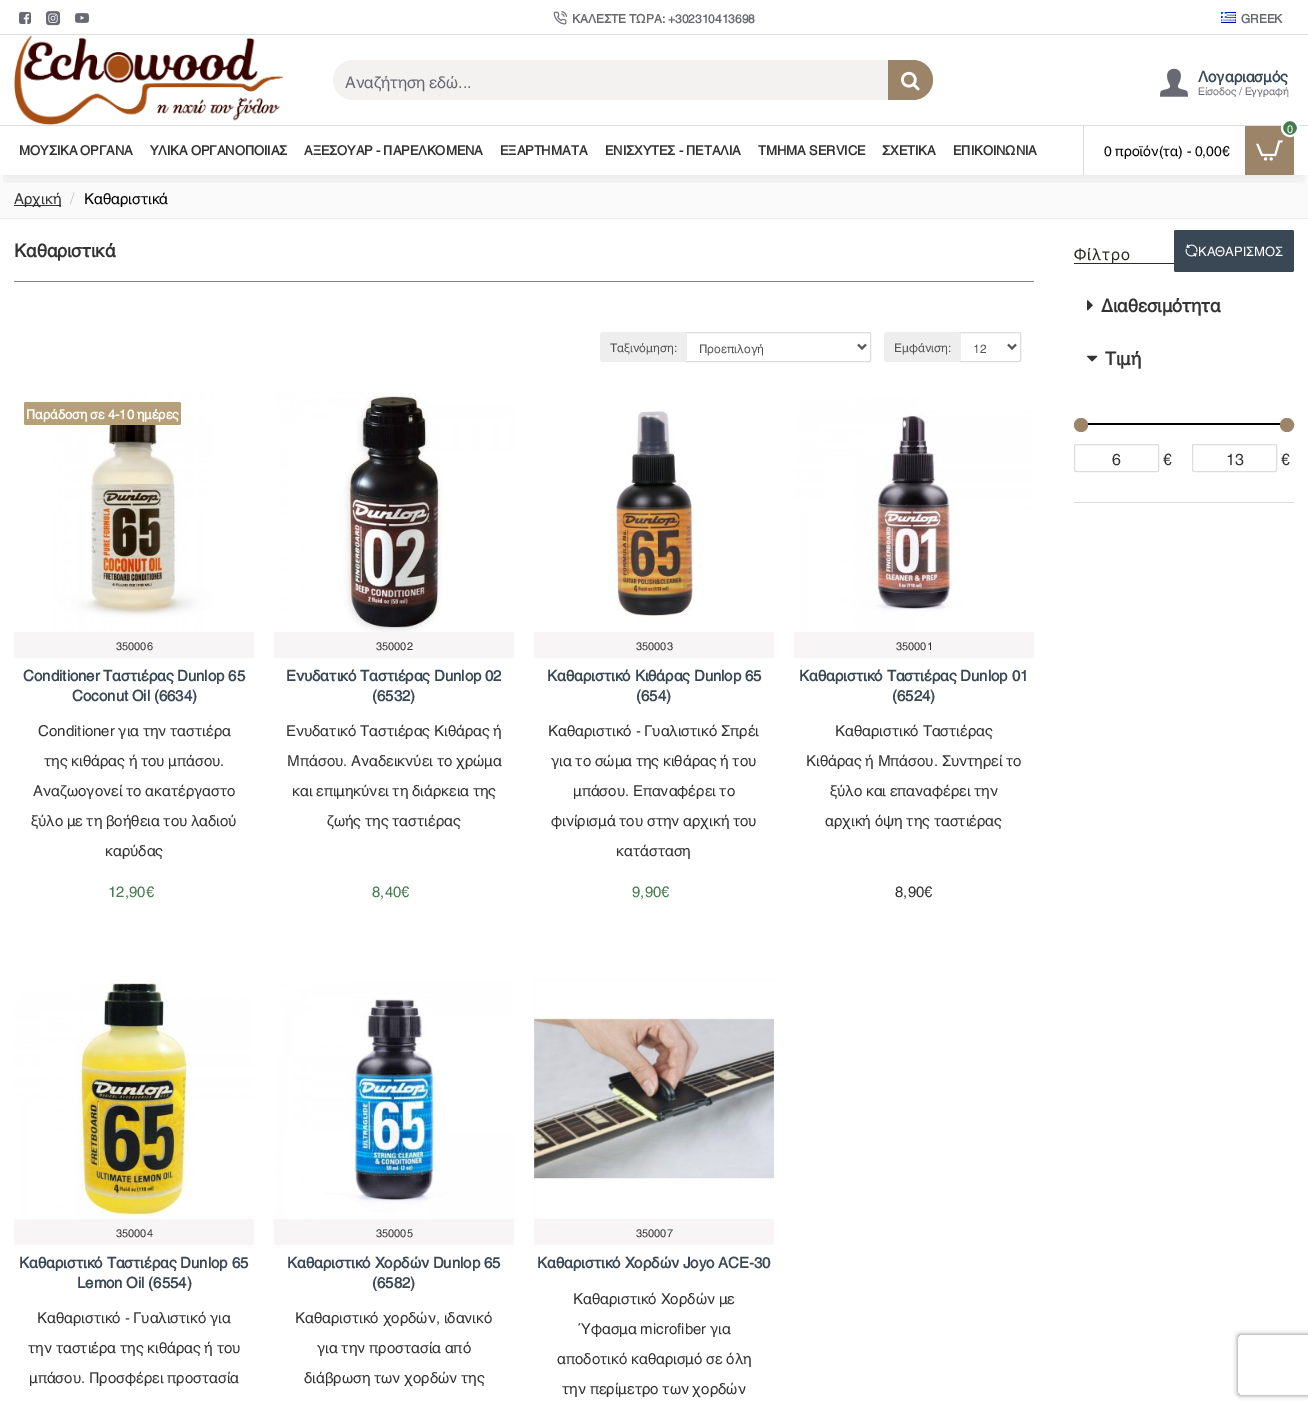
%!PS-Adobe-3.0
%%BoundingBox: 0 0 1308 1409
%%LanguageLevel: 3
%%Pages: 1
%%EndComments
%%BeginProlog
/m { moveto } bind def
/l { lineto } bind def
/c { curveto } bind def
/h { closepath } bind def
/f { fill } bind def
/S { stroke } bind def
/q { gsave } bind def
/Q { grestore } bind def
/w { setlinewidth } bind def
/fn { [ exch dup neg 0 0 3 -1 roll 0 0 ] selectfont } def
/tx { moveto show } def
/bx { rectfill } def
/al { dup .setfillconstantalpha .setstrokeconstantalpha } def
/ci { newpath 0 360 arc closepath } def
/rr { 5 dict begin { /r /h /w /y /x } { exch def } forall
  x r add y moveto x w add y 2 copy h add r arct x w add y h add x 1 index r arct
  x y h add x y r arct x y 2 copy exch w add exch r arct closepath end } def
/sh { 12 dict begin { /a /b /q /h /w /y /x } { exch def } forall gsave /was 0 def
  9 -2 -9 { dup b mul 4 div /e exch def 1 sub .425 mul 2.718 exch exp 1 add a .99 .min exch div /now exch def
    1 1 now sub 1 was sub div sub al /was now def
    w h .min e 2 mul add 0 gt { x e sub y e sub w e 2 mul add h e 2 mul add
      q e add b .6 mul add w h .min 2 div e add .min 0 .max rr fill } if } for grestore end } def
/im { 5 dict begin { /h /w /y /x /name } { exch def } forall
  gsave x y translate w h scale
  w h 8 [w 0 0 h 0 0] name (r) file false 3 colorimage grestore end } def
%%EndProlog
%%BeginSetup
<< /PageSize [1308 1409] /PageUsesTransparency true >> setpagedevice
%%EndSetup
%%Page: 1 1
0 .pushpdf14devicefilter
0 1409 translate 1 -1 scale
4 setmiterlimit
1 setgray
0 0 1308 1409 bx
0.98 setgray
0 175 1308 43 bx
0.2 setgray
14 205 47 1 bx
q
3 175 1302 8 rectclip
0 setgray
5 10 1298 165 0 10 0.1 sh
Q
(image0.raw) 19 12 12 12 im
(image1.raw) 46 11 14 15 im
(image2.raw) 75 13 14 10 im
(image3.raw) 553 11 14 14 im
/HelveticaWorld-Bold 12 fn
0.412 0.412 0.451 setrgbcolor
(ΚΑΛΕΣΤΕ ΤΩΡΑ: +302310413698) 572 23 tx
(image4.raw) 1221 12 15 11 im
(GREEK) 1241 23 tx
(image5.raw) 14 35 269 90 im
0.953 0.949 0.941 setrgbcolor
353 60 m 888 60 l 888 100 l 353 100 l 342 100 333 91 333 80 c 333 69 342 60 353 60 c h f
/HelveticaWorld-Regular 16 fn
0.412 0.412 0.451 setrgbcolor
(Αναζήτηση εδώ...) 345 88 tx
0.612 0.518 0.408 setrgbcolor
888 60 m 913 60 l 924 60 933 69 933 80 c 933 91 924 100 913 100 c 888 100 l h f
(image6.raw) 901 71 19 20 im
(image7.raw) 1160 68 28 29 im
/HelveticaWorld-Bold 15 fn
0.227 0.278 0.329 setrgbcolor
(Λογαριασμός) 1198 82 tx
q
1198 64 91 33 rectclip
/HelveticaWorld-Regular 10.5 fn
0.412 0.412 0.451 setrgbcolor
(Είσοδος / Εγγραφή) 1198 95 tx
Q
0.867 setgray
0 125 1308 1 bx
/HelveticaWorld-Bold 13 fn
0.2 setgray
(ΜΟΥΣΙΚΑ ΟΡΓΑΝΑ) 19 155 tx
(ΥΛΙΚΑ ΟΡΓΑΝΟΠΟΙΙΑΣ) 150 155 tx
(ΑΞΕΣΟΥΑΡ - ΠΑΡΕΛΚΟΜΕΝΑ) 304 155 tx
(ΕΞΑΡΤΗΜΑΤΑ) 500 155 tx
(ΕΝΙΣΧΥΤΕΣ - ΠΕΤΑΛΙΑ) 605 155 tx
(ΤΜΗΜΑ SERVICE) 758 155 tx
(ΣΧΕΤΙΚΑ) 882 155 tx
(ΕΠΙΚΟΙΝΩΝΙΑ) 953 155 tx
0.867 setgray
1083 125 1 50 bx
0.612 0.518 0.408 setrgbcolor
1245 126 49 49 bx
0.271 0.478 0.298 setrgbcolor
1290 128 8 ci q f Q
1 setgray
2 w
S
/HelveticaWorld-Regular 11 fn
(0) 1287 133 tx
/HelveticaWorld-Regular 14 fn
0 setgray
(0 προϊόν\(τα\) - 0,00€) 1104 156 tx
(image8.raw) 1256 140 27 21 im
0.867 setgray
0 34 1308 1 bx
0.933 setgray
0 218 1308 1 bx
/HelveticaWorld-Regular 15 fn
0.2 setgray
(Αρχική) 14 204 tx
/HelveticaWorld-Regular 16 fn
0.8 setgray
(/) 70 204 tx
/HelveticaWorld-Regular 15 fn
0 setgray
(Καθαριστικά) 84 204 tx
0.533 0.514 0.514 setrgbcolor
14 281 1020 1 bx
/HelveticaWorld-Bold 18 fn
0.2 setgray
(Καθαριστικά) 14 257 tx
0.867 setgray
1 w
684.5 332.5 186 29 1.5 rr S
0.933 setgray
600 332 87 30 3 rr f
/HelveticaWorld-Regular 12 fn
0.333 setgray
(Ταξινόμηση:) 610 352 tx
2 w
858 344.5 m 862 348.5 l 866 344.5 l S
(Προεπιλογή) 699 353 tx
0.867 setgray
1 w
958.5 332.5 62 29 1.5 rr S
0.933 setgray
884 332 77 30 3 rr f
0.333 setgray
(Εμφάνιση:) 894 352 tx
2 w
1008 344.5 m 1012 348.5 l 1016 344.5 l S
(12) 973 353 tx
(image9.raw) 14 392 240 240 im
0.718 0.627 0.467 setrgbcolor
24 402 157 23 2 rr f
/HelveticaWorld-Bold 13 fn
1 setgray
(Παράδοση σε 4-10 ημέρες) 26 419 tx
0.969 0.961 0.961 setrgbcolor
14 632 240 26 bx
/HelveticaWorld-Regular 11 fn
0.2 setgray
(350006) 116 650 tx
/HelveticaWorld-Bold 15 fn
0.227 0.278 0.329 setrgbcolor
(Conditioner Ταστιέρας Dunlop 65) 23 681 tx
(Coconut Oil \(6634\)) 72 701 tx
/HelveticaWorld-Regular 15 fn
0.2 setgray
(Conditioner για την ταστιέρα) 38 736 tx
(της κιθάρας ή του μπάσου.) 44 766 tx
(Αναζωογονεί το ακατέργαστο) 33 796 tx
(ξύλο με τη βοήθεια του λαδιού) 31 826 tx
(καρύδας) 105 856 tx
0.271 0.478 0.298 setrgbcolor
(12,90€) 108 897 tx
(image10.raw) 274 392 240 240 im
0.969 0.961 0.961 setrgbcolor
274 632 240 26 bx
/HelveticaWorld-Regular 11 fn
0.2 setgray
(350002) 376 650 tx
/HelveticaWorld-Bold 15 fn
0.227 0.278 0.329 setrgbcolor
(Ενυδατικό Ταστιέρας Dunlop 02) 286 681 tx
(\(6532\)) 372 701 tx
/HelveticaWorld-Regular 15 fn
0.2 setgray
(Ενυδατικό Ταστιέρας Κιθάρας ή) 286 736 tx
(Μπάσου. Αναδεικνύει το χρώμα) 287 766 tx
(και επιμηκύνει τη διάρκεια της) 292 796 tx
(ζωής της ταστιέρας) 327 826 tx
0.271 0.478 0.298 setrgbcolor
(8,40€) 372 897 tx
(image11.raw) 534 392 240 240 im
0.969 0.961 0.961 setrgbcolor
534 632 240 26 bx
/HelveticaWorld-Regular 11 fn
0.2 setgray
(350003) 636 650 tx
/HelveticaWorld-Bold 15 fn
0.227 0.278 0.329 setrgbcolor
(Καθαριστικό Κιθάρας Dunlop 65) 547 681 tx
(\(654\)) 636 701 tx
/HelveticaWorld-Regular 15 fn
0.2 setgray
(Καθαριστικό - Γυαλιστικό Σπρέι) 548 736 tx
(για το σώμα της κιθάρας ή του) 551 766 tx
(μπάσου. Επαναφέρει το) 573 796 tx
(φινίρισμά του στην αρχική του) 551 826 tx
(κατάσταση) 616 856 tx
0.271 0.478 0.298 setrgbcolor
(9,90€) 632 897 tx
(image12.raw) 794 392 240 240 im
0.969 0.961 0.961 setrgbcolor
794 632 240 26 bx
/HelveticaWorld-Regular 11 fn
0.2 setgray
(350001) 896 650 tx
/HelveticaWorld-Bold 15 fn
0.227 0.278 0.329 setrgbcolor
(Καθαριστικό Ταστιέρας Dunlop 01) 799 681 tx
(\(6524\)) 892 701 tx
/HelveticaWorld-Regular 15 fn
0.2 setgray
(Καθαριστικό Ταστιέρας) 835 736 tx
(Κιθάρας ή Μπάσου. Συντηρεί το) 806 766 tx
(ξύλο και επαναφέρει την) 830 796 tx
(αρχική όψη της ταστιέρας) 825 826 tx
(8,90€) 895 897 tx
(image13.raw) 14 979 240 240 im
0.969 0.961 0.961 setrgbcolor
14 1219 240 26 bx
/HelveticaWorld-Regular 11 fn
0.2 setgray
(350004) 116 1237 tx
/HelveticaWorld-Bold 15 fn
0.227 0.278 0.329 setrgbcolor
(Καθαριστικό Ταστιέρας Dunlop 65) 19 1268 tx
(Lemon Oil \(6554\)) 77 1288 tx
/HelveticaWorld-Regular 15 fn
0.2 setgray
(Καθαριστικό - Γυαλιστικό για) 37 1323 tx
(την ταστιέρα της κιθάρας ή του) 28 1353 tx
(μπάσου. Προσφέρει προστασία) 29 1383 tx
(image14.raw) 274 979 240 240 im
0.969 0.961 0.961 setrgbcolor
274 1219 240 26 bx
/HelveticaWorld-Regular 11 fn
0.2 setgray
(350005) 376 1237 tx
/HelveticaWorld-Bold 15 fn
0.227 0.278 0.329 setrgbcolor
(Καθαριστικό Χορδών Dunlop 65) 287 1268 tx
(\(6582\)) 372 1288 tx
/HelveticaWorld-Regular 15 fn
0.2 setgray
(Καθαριστικό χορδών, ιδανικό) 295 1323 tx
(για την προστασία από) 317 1353 tx
(διάβρωση των χορδών της) 304 1383 tx
(image15.raw) 534 979 240 240 im
0.969 0.961 0.961 setrgbcolor
534 1219 240 26 bx
/HelveticaWorld-Regular 11 fn
0.2 setgray
(350007) 636 1237 tx
/HelveticaWorld-Bold 15 fn
0.227 0.278 0.329 setrgbcolor
(Καθαριστικό Χορδών Joyo ACE-30) 537 1268 tx
/HelveticaWorld-Regular 15 fn
0.2 setgray
(Καθαριστικό Χορδών με) 573 1304 tx
(Ύφασμα microfiber για) 578 1334 tx
(αποδοτικό καθαρισμό σε όλη) 557 1364 tx
(την περίμετρο των χορδών) 562 1394 tx
0.169 0.169 0.157 setrgbcolor
1074 263 100 1 bx
/HelveticaWorld-Regular 16 fn
1074 260 m 1 0 (Φίλτρο) ashow
0.227 0.278 0.329 setrgbcolor
1174 230 120 42 2 rr f
(image16.raw) 1185 244 13 13 im
/HelveticaWorld-Regular 13 fn
1 setgray
(ΚΑΘΑΡΙΣΜΟΣ) 1198 256 tx
0.867 setgray
1074 502 220 1 bx
(image17.raw) 1087 300 6 11 im
/HelveticaWorld-Bold 18 fn
0.2 setgray
(Διαθεσιμότητα) 1101 312 tx
(image18.raw) 1087 355 11 7 im
(Τιμή) 1105 365 tx
0 setgray
1079 423 m 1292 423 l 1294 424 l 1295 425 1291 425 1289 425 c 1079 425 l 1073 425 1073 423 1079 423 c h f
0.612 0.518 0.408 setrgbcolor
1081 425 7 ci f
1287 425 7 ci f
0.867 setgray
1 w
1074.5 444.5 84 27 1.5 rr S
/HelveticaWorld-Regular 16 fn
0.2 setgray
(6) 1112 465 tx
(€) 1163 465 tx
0.867 setgray
1192.5 444.5 84 27 1.5 rr S
0.2 setgray
(13) 1226 465 tx
(€) 1281 465 tx
q
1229 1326 m 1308 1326 l 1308 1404 l 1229 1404 l h 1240 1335 m 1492 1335 l 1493 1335 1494 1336 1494 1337 c 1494 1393 l 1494 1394 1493 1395 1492 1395 c 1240 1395 l 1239 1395 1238 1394 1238 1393 c 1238 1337 l 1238 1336 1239 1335 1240 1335 c h eoclip newpath
0.502 setgray
1238 1335 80 60 2 2.5 1 sh
Q
.poppdf14devicefilter showpage
%%EOF
